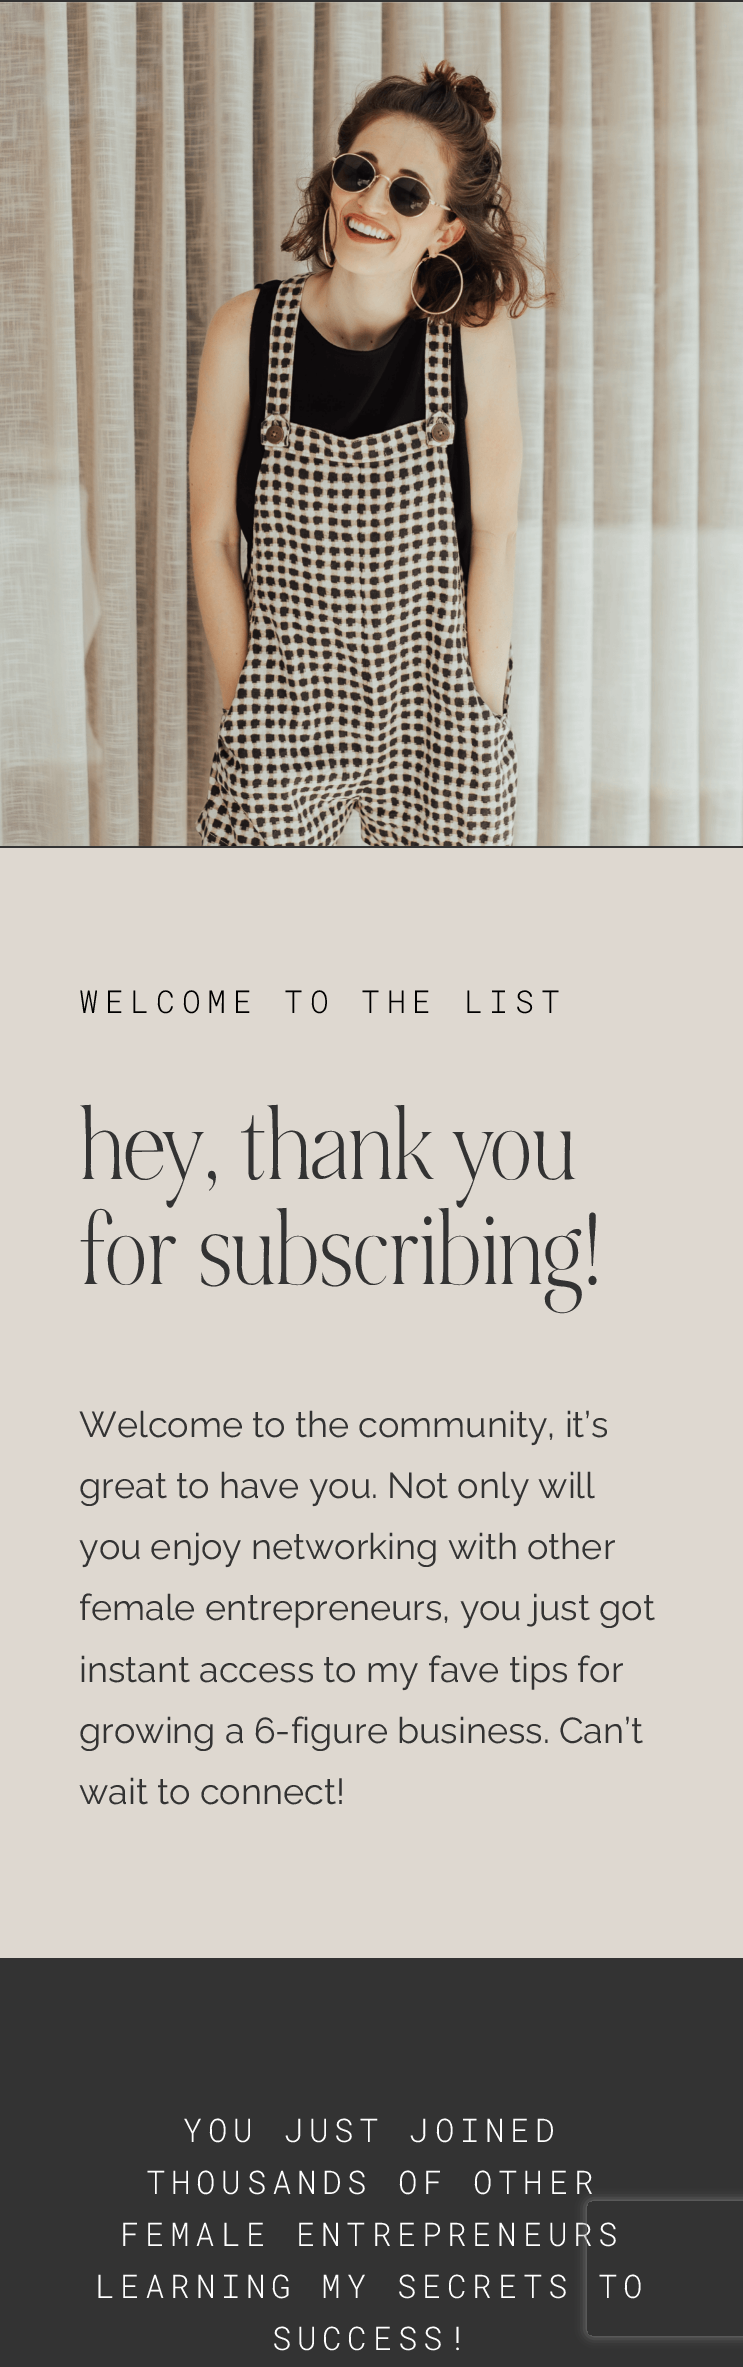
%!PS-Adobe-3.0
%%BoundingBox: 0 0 743 2367
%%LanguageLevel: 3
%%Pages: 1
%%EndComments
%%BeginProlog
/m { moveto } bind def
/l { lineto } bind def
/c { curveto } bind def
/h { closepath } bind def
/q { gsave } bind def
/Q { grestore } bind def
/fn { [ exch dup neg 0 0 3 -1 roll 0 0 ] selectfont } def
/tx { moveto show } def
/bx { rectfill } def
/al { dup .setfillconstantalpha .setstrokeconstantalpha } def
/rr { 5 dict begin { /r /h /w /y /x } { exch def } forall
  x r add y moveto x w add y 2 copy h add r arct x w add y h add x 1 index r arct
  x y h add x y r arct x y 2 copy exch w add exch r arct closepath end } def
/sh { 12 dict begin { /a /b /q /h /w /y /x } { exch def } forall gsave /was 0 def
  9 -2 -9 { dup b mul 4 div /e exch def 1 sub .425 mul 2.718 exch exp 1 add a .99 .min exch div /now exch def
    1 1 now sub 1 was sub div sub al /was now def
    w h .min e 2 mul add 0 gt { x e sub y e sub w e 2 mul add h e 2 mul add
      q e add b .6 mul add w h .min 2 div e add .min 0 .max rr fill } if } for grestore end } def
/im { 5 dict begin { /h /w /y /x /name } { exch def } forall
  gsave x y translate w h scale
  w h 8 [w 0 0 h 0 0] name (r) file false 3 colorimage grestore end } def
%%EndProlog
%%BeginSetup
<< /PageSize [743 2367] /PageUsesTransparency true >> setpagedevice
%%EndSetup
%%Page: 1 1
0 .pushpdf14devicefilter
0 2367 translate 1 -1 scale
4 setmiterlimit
0.871 0.847 0.816 setrgbcolor
0 0 743 2367 bx
0.2 setgray
0 0 743 2 bx
(image0.raw) 0 2 743 844 im
0 846 743 2 bx
/RobotoMono-Light 31.5 fn
0 setgray
79 1013 m 6.75 0 (WELCOME TO THE LIST) ashow
/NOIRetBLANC-Regular 81 fn
0.2 setgray
(hey, thank you) 79 1179 tx
(for subscribing!) 79 1284 tx
/Raleway-Regular 36 fn
(Welcome to the community, it’s) 79 1437 tx
(great to have you. Not only will) 79 1498 tx
(you enjoy networking with other) 79 1559 tx
(female entrepreneurs, you just got) 79 1620 tx
(instant access to my fave tips for) 79 1682 tx
(growing a 6-figure business. Can’t) 79 1743 tx
(wait to connect!) 79 1804 tx
0 1958 743 409 bx
/RobotoMono-Light 32.6 fn
1 setgray
183 2142 m 5.6 0 (YOU JUST JOINED) ashow
146 2194 m 5.6 0 (THOUSANDS OF OTHER) ashow
120 2246 m 5.6 0 (FEMALE ENTREPRENEURS) ashow
95 2298 m 5.6 0 (LEARNING MY SECRETS TO) ashow
272 2350 m 5.6 0 (SUCCESS!) ashow
q
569 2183 m 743 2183 l 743 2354 l 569 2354 l h 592 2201 m 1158 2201 l 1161 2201 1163 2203 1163 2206 c 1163 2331 l 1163 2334 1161 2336 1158 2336 c 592 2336 l 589 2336 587 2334 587 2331 c 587 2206 l 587 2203 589 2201 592 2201 c h eoclip newpath
0.502 setgray
587 2201 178 135 5 5.5 1 sh
Q
.poppdf14devicefilter showpage
%%EOF
